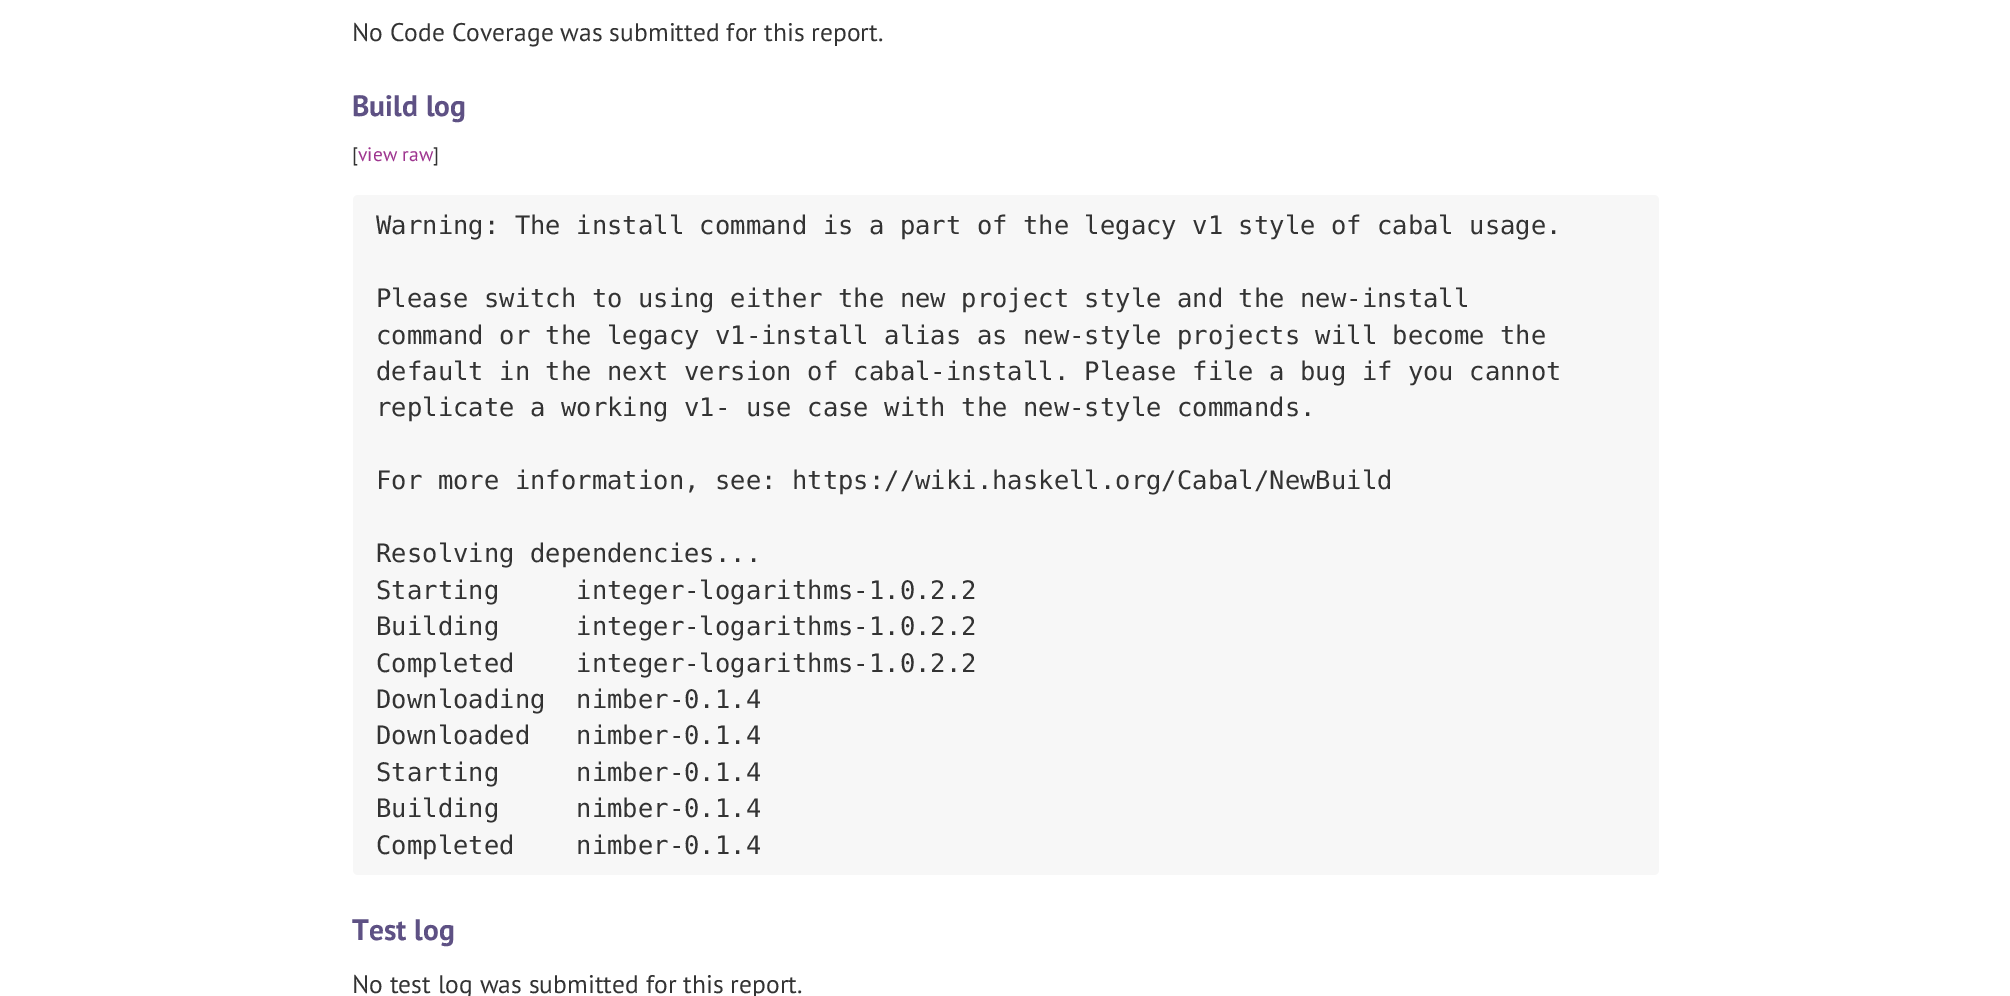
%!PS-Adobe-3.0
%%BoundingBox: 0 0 2010 996
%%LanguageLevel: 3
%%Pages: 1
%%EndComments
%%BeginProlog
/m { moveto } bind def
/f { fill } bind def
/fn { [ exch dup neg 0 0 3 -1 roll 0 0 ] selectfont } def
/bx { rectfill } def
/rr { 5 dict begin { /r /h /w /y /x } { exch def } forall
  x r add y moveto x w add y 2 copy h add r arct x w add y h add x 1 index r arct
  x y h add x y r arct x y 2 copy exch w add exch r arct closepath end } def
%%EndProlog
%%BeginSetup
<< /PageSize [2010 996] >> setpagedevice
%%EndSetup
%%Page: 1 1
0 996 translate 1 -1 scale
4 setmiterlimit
1 setgray
0 0 2010 996 bx
/PTSans-Regular 25.5 fn
0.2 setgray
352 41 m 0.05 0 (No Code Coverage was submitted for this report.) ashow
/PTSans-Bold 29.5 fn
0.369 0.318 0.518 setrgbcolor
352 116 m 0.05 0 (Build log) ashow
/PTSans-Regular 19.5 fn
0.2 setgray
352 161 m 0.05 0 ([) ashow
0.62 0.208 0.561 setrgbcolor
358 161 m 0.05 0 (view raw) ashow
0.2 setgray
433 161 m 0.05 0 (]) ashow
0.969 setgray
353 195 1306 680 5 rr f
/DejaVuSansMono-Regular 25.5 fn
0.2 setgray
376 234 m 0.05 0 (Warning: The install command is a part of the legacy v1 style of cabal usage.) ashow
376 307 m 0.05 0 (Please switch to using either the new project style and the new-install) ashow
376 344 m 0.05 0 (command or the legacy v1-install alias as new-style projects will become the) ashow
376 380 m 0.05 0 (default in the next version of cabal-install. Please file a bug if you cannot) ashow
376 416 m 0.05 0 (replicate a working v1- use case with the new-style commands.) ashow
376 489 m 0.05 0 (For more information, see: https://wiki.haskell.org/Cabal/NewBuild) ashow
376 562 m 0.05 0 (Resolving dependencies...) ashow
376 599 m 0.05 0 (Starting     integer-logarithms-1.0.2.2) ashow
376 635 m 0.05 0 (Building     integer-logarithms-1.0.2.2) ashow
376 672 m 0.05 0 (Completed    integer-logarithms-1.0.2.2) ashow
376 708 m 0.05 0 (Downloading  nimber-0.1.4) ashow
376 744 m 0.05 0 (Downloaded   nimber-0.1.4) ashow
376 781 m 0.05 0 (Starting     nimber-0.1.4) ashow
376 817 m 0.05 0 (Building     nimber-0.1.4) ashow
376 854 m 0.05 0 (Completed    nimber-0.1.4) ashow
/PTSans-Bold 29.5 fn
0.369 0.318 0.518 setrgbcolor
352 940 m 0.05 0 (Test log) ashow
/PTSans-Regular 25.5 fn
0.2 setgray
352 993 m 0.05 0 (No test log was submitted for this report.) ashow
showpage
%%EOF
